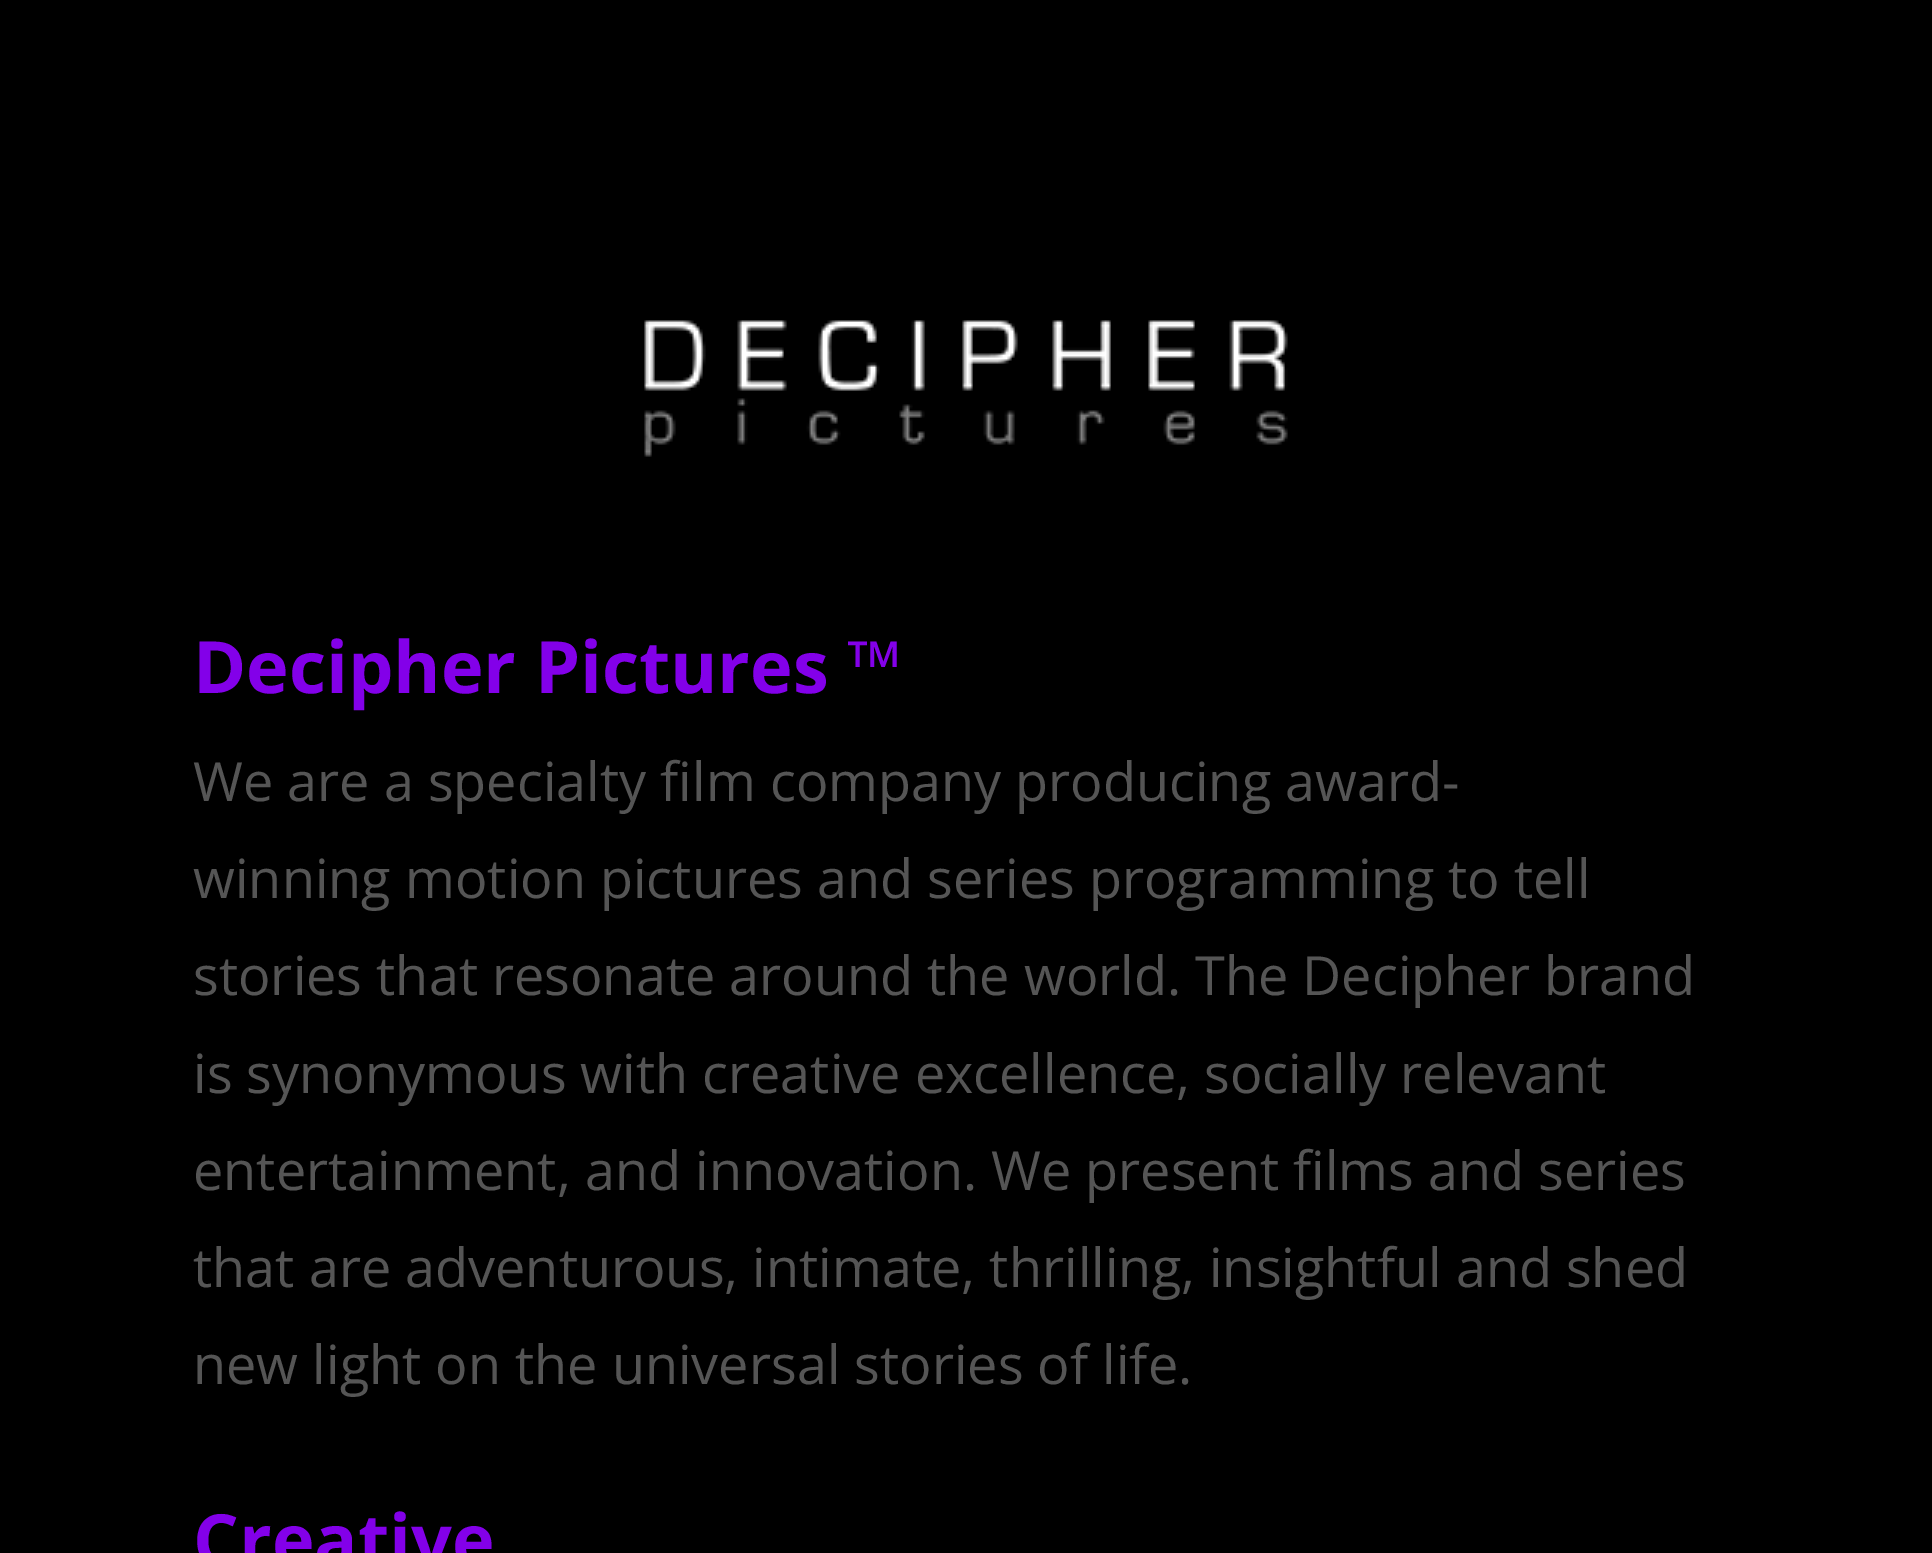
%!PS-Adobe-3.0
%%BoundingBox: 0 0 1932 1553
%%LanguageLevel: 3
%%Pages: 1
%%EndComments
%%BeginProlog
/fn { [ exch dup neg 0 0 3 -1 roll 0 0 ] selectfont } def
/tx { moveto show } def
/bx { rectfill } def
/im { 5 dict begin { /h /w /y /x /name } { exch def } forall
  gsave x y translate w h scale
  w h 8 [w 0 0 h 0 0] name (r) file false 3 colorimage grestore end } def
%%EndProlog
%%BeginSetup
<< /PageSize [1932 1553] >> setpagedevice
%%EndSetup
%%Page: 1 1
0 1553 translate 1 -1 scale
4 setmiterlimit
0 setgray
0 0 1932 1553 bx
(image0.raw) 644 320 644 137 im
/OpenSans-Bold 72 fn
0.514 0 0.914 setrgbcolor
(Decipher Pictures) 193 693 tx
/OpenSans-Regular 72 fn
(™) 847 693 tx
/OpenSans-Regular 54 fn
0.333 setgray
(We are a specialty film company producing award-) 193 801 tx
(winning motion pictures and series programming to tell) 193 898 tx
(stories that resonate around the world. The Decipher brand) 193 995 tx
(is synonymous with creative excellence, socially relevant) 193 1093 tx
(entertainment, and innovation. We present films and series) 193 1190 tx
(that are adventurous, intimate, thrilling, insightful and shed) 193 1287 tx
(new light on the universal stories of life.) 193 1384 tx
/OpenSans-Bold 72 fn
0.514 0 0.914 setrgbcolor
(Creative) 193 1566 tx
showpage
%%EOF
